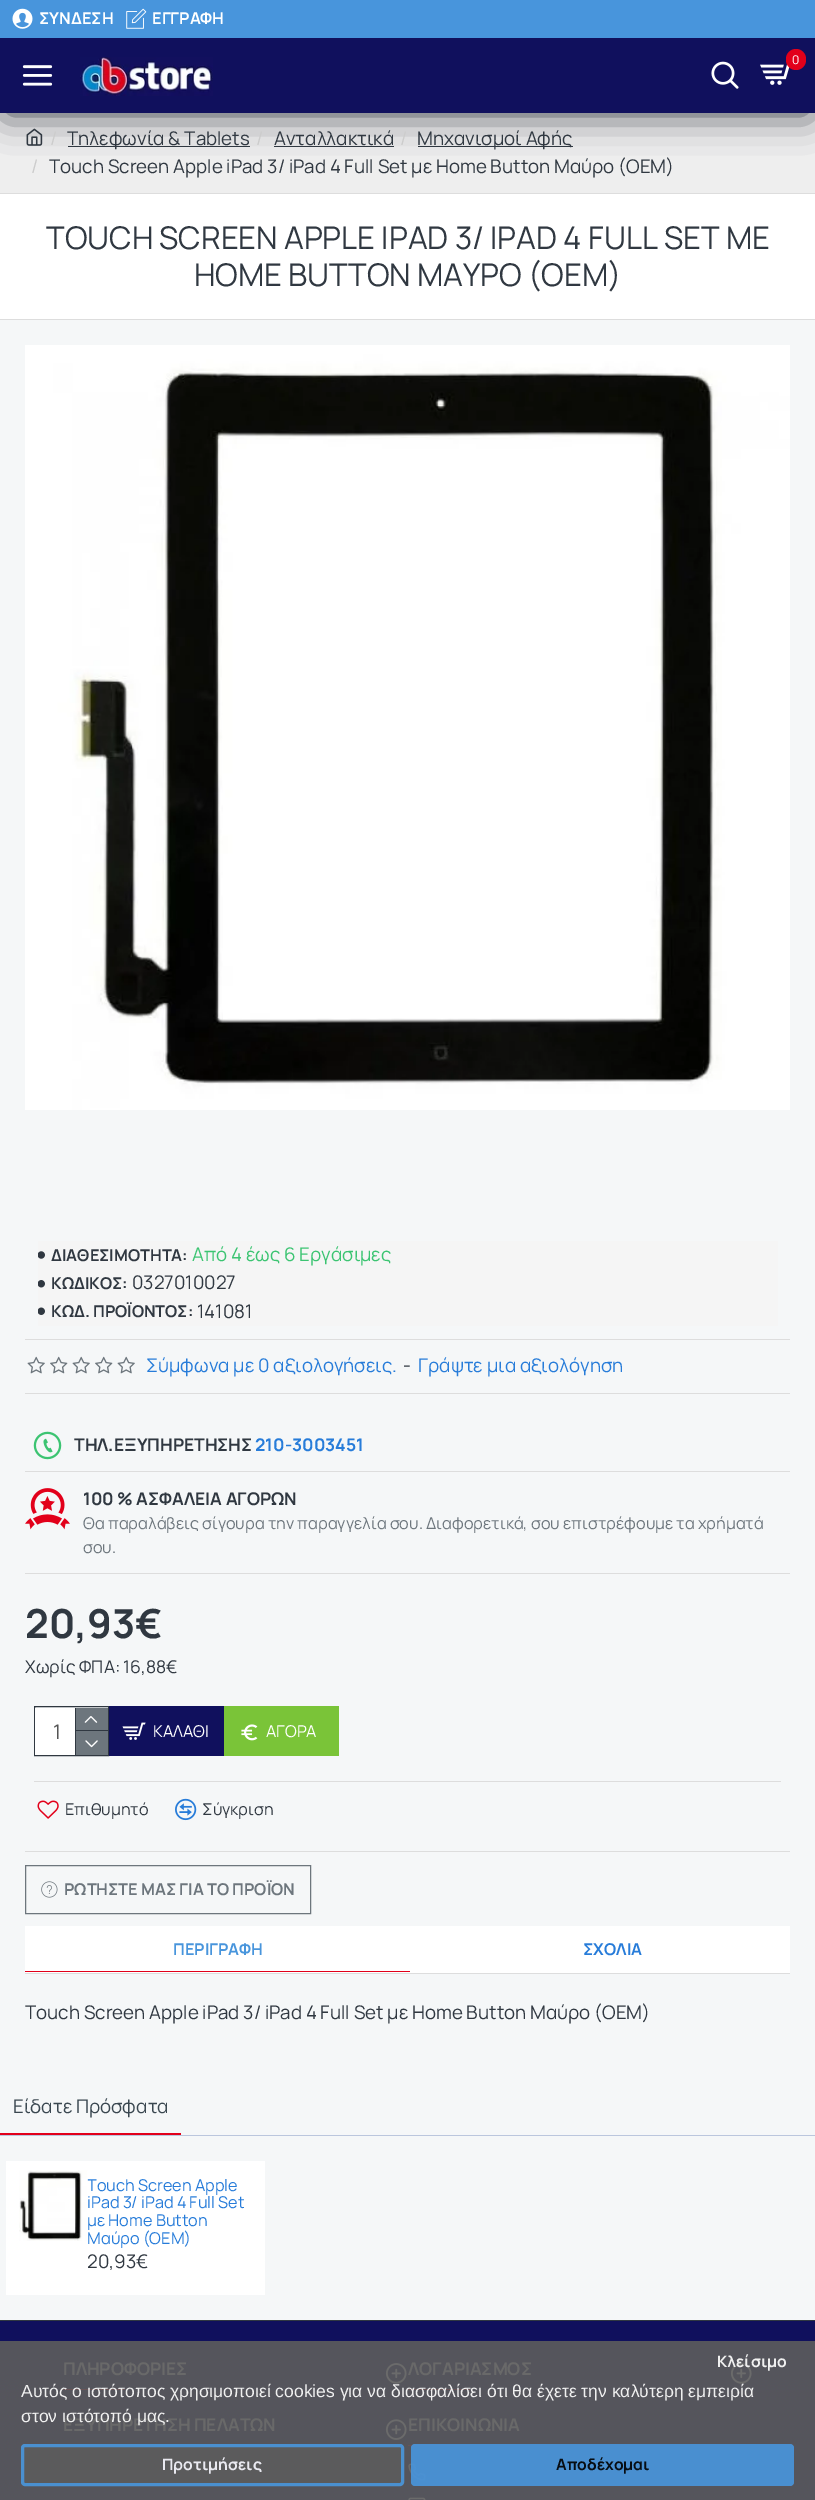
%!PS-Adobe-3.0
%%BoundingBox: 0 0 815 2500
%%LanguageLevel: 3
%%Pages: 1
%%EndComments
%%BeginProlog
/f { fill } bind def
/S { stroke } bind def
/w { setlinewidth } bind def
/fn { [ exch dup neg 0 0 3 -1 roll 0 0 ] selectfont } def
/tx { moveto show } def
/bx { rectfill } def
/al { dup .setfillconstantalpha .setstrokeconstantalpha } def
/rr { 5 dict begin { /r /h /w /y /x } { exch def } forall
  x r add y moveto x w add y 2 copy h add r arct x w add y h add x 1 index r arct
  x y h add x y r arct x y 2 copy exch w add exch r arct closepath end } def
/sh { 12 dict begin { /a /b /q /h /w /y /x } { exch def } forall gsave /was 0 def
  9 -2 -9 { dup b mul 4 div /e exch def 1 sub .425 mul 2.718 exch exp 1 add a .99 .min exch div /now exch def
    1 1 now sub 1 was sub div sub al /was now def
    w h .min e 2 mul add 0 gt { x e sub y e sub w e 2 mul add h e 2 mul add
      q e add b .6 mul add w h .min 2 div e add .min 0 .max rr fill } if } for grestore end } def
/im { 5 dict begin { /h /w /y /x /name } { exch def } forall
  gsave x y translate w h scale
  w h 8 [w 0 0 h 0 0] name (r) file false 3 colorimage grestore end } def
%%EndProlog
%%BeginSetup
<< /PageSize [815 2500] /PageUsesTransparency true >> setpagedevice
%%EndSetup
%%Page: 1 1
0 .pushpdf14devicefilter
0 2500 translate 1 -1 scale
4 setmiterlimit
0.961 0.969 0.973 setrgbcolor
0 0 815 2500 bx
0.933 setgray
0 113 815 80 bx
(image6.raw) 26 128 17 18 im
0.188 0.22 0.255 setrgbcolor
68 146 182 1 bx
274 146 120 1 bx
418 146 155 1 bx
6 50 803 63 0 19 1 sh
0.282 0.584 0.863 setrgbcolor
0 0 815 38 bx
(image0.raw) 12 8 21 21 im
/Manrope-Bold 16.25 fn
1 setgray
(ΣΥΝΔΕΣΗ) 39 24 tx
(image1.raw) 126 8 21 21 im
(ΕΓΓΡΑΦΗ) 152 24 tx
0.063 0.063 0.365 setrgbcolor
0 38 815 75 bx
(image2.raw) 80 57 133 39 im
(image3.raw) 760 64 30 21 im
0.886 0 0.102 setrgbcolor
786 49 20 21 10 rr f
/Manrope-Regular 12 fn
1 setgray
(0) 792 64 tx
(image4.raw) 22 65 31 21 im
(image5.raw) 711 61 28 28 im
0.867 setgray
0 193 815 1 bx
/Manrope-Regular 18.75 fn
0.8 setgray
(/) 50 145 tx
0.188 0.22 0.255 setrgbcolor
(Τηλεφωνία & Tablets) 67 145 tx
0.8 setgray
(/) 256 145 tx
0.188 0.22 0.255 setrgbcolor
(Ανταλλακτικά) 274 145 tx
0.8 setgray
(/) 400 145 tx
0.188 0.22 0.255 setrgbcolor
(Μηχανισμοί Αφής) 417 145 tx
0.8 setgray
(/) 31 173 tx
0.188 0.22 0.255 setrgbcolor
(Touch Screen Apple iPad 3/ iPad 4 Full Set με Home Button Μαύρο \(OEM\)) 49 173 tx
1 setgray
0 194 815 125 bx
0.867 setgray
0 319 815 1 bx
/Manrope-Regular 31.25 fn
0.188 0.22 0.255 setrgbcolor
(TOUCH SCREEN APPLE IPAD 3/ IPAD 4 FULL SET ΜΕ) 46 249 tx
(HOME BUTTON ΜΑΥΡΟ \(OEM\)) 194 286 tx
(image7.raw) 25 345 765 765 im
0.961 setgray
38 1241 740 85 bx
(image8.raw) 38 1251 7 8 im
/Manrope-Bold 16.25 fn
0.188 0.22 0.255 setrgbcolor
(ΔΙΑΘΕΣΙΜΟΤΗΤΑ:) 51 1261 tx
/Manrope-Regular 18.75 fn
0.235 0.769 0.447 setrgbcolor
(Από 4 έως 6 Εργάσιμες) 192 1261 tx
(image9.raw) 38 1280 7 8 im
/Manrope-Bold 16.25 fn
0.188 0.22 0.255 setrgbcolor
(ΚΩΔΙΚΟΣ:) 51 1289 tx
/Manrope-Regular 18.75 fn
(0327010027) 132 1289 tx
(image10.raw) 38 1307 7 8 im
/Manrope-Bold 16.25 fn
(ΚΩΔ. ΠΡΟΪΟΝΤΟΣ:) 51 1317 tx
/Manrope-Regular 18.75 fn
(141081) 197 1318 tx
0.867 setgray
25 1339 765 1 bx
25 1393 765 1 bx
(image11.raw) 27 1356 18 18 im
(image12.raw) 50 1356 18 18 im
(image11.raw) 72 1356 18 18 im
(image12.raw) 95 1356 18 18 im
(image11.raw) 117 1356 18 18 im
0.153 0.486 0.851 setrgbcolor
(Σύμφωνα με 0 αξιολογήσεις.) 146 1372 tx
0.188 0.22 0.255 setrgbcolor
(-) 403 1372 tx
0.153 0.486 0.851 setrgbcolor
(Γράψτε μια αξιολόγηση) 418 1372 tx
0.867 setgray
25 1471 765 1 bx
(image13.raw) 33 1431 29 29 im
/Manrope-Bold 17.5 fn
0.188 0.22 0.255 setrgbcolor
(ΤΗΛ.ΕΞΥΠΗΡΕΤΗΣΗΣ) 74 1451 tx
0.153 0.486 0.851 setrgbcolor
(210-3003451) 255 1451 tx
0.867 setgray
25 1573 765 1 bx
(image14.raw) 25 1488 45 42 im
0.188 0.22 0.255 setrgbcolor
(100 % ΑΣΦΑΛΕΙΑ ΑΓΟΡΩΝ) 83 1505 tx
/Manrope-Regular 16.25 fn
0.427 0.463 0.49 setrgbcolor
(Θα παραλάβεις σίγουρα την παραγγελία σου. Διαφορετικά, σου επιστρέφουμε τα χρήματά) 83 1529 tx
(σου.) 83 1553 tx
/Manrope-Bold 40 fn
0.188 0.22 0.255 setrgbcolor
(20,93€) 25 1638 tx
/Manrope-Regular 17.5 fn
(Χωρίς ΦΠΑ: 16,88€) 25 1673 tx
34.5 1706.5 74 49 rectstroke
1 setgray
35 1708 40 47 bx
/Manrope-Regular 20 fn
0.333 setgray
(1) 53 1739 tx
0.188 0.22 0.255 setrgbcolor
75 1708 1 47 bx
0.427 0.463 0.49 setrgbcolor
76 1708 32 22 bx
0.188 0.22 0.255 setrgbcolor
76 1730 32 1 bx
(image15.raw) 84 1716 14 7 im
0.427 0.463 0.49 setrgbcolor
76 1731 32 24 bx
(image16.raw) 85 1740 13 8 im
0.063 0.063 0.365 setrgbcolor
109 1706 115 50 bx
(image17.raw) 122 1722 24 18 im
/Manrope-Regular 16.25 fn
1 setgray
(ΚΑΛΑΘΙ) 153 1737 tx
0.478 0.769 0.22 setrgbcolor
224 1706 115 50 bx
(image18.raw) 241 1724 17 17 im
1 setgray
(ΑΓΟΡΑ) 266 1737 tx
0.867 setgray
34 1781 747 1 bx
(image19.raw) 37 1800 22 19 im
0.188 0.22 0.255 setrgbcolor
(Επιθυμητό) 65 1815 tx
(image20.raw) 175 1798 22 23 im
(Σύγκριση) 202 1815 tx
0.867 setgray
25 1851 765 1 bx
0.427 0.463 0.49 setrgbcolor
25.5 1865.5 285 48 rectstroke
(image21.raw) 41 1881 17 17 im
/Manrope-Bold 16.25 fn
(ΡΩΤΗΣΤΕ ΜΑΣ ΓΙΑ ΤΟ ΠΡΟΪΟΝ) 64 1895 tx
1 setgray
25 1926 765 47 bx
0.867 setgray
25 1973 765 1 bx
0.886 0 0.102 setrgbcolor
25 1971 385 1 bx
0.282 0.584 0.863 setrgbcolor
(ΠΕΡΙΓΡΑΦΗ) 173 1955 tx
0.153 0.486 0.851 setrgbcolor
(ΣΧΟΛΙΑ) 583 1955 tx
/Manrope-Regular 18.75 fn
0.188 0.22 0.255 setrgbcolor
(Touch Screen Apple iPad 3/ iPad 4 Full Set με Home Button Μαύρο \(OEM\)) 25 2019 tx
0.733 0.776 0.867 setrgbcolor
0 2135 815 1 bx
0.886 0 0.102 setrgbcolor
0 2133 181 2 bx
0.227 0.278 0.314 setrgbcolor
(Είδατε Πρόσφατα) 13 2113 tx
1 setgray
6 2161 259 134 bx
/Manrope-Regular 16.25 fn
0.153 0.486 0.851 setrgbcolor
(Touch Screen Apple) 87 2191 tx
(image22.raw) 19 2170 69 71 im
(iPad 3/ iPad 4 Full Set) 87 2208 tx
(με Home Button) 87 2226 tx
(Μαύρο \(OEM\)) 87 2244 tx
/Manrope-Regular 18.75 fn
0.188 0.22 0.255 setrgbcolor
(20,93€) 87 2268 tx
0.063 0.063 0.365 setrgbcolor
0 2321 815 20 bx
0.333 0.333 0.361 setrgbcolor
0 2341 815 159 bx
0.188 0.22 0.255 setrgbcolor
0 2320 815 1 bx
/Manrope-Bold 17.5 fn
0.412 setgray
(ΠΛΗΡΟΦΟΡΙΕΣ) 63 2375 tx
(image23.raw) 385 2363 22 21 im
0.408 0.329 0.337 setrgbcolor
63 2389 62 1 bx
0.412 setgray
(ΛΟΓΑΡΙΑΣΜΟΣ) 408 2375 tx
(image23.raw) 730 2363 22 21 im
0.408 0.329 0.337 setrgbcolor
408 2389 62 1 bx
0.412 setgray
(ΕΞΥΠΗΡΕΤΗΣΗ ΠΕΛΑΤΩΝ) 63 2431 tx
(image24.raw) 385 2419 22 21 im
0.408 0.329 0.337 setrgbcolor
63 2445 62 1 bx
0.412 setgray
(ΕΠΙΚΟΙΝΩΝΙΑ) 408 2431 tx
0.408 0.329 0.337 setrgbcolor
408 2445 62 1 bx
(image25.raw) 408 2463 18 18 im
(image26.raw) 408 2497 18 3 im
/Manrope-Bold 15.75 fn
0.941 setgray
(Κλείσιμο) 717 2367 tx
0.91 al
0.361 setgray
21 2444 383 42 4 rr f
0.282 0.584 0.863 setrgbcolor
3 w
22.5 2445.5 380 39 2.5 rr S
1 al
0.914 0.914 0.941 setrgbcolor
(Προτιμήσεις) 162 2470 tx
0.91 al
0.282 0.584 0.863 setrgbcolor
411 2444 383 42 4 rr f
1 al
0.027 0.051 0.075 setrgbcolor
(Αποδέχομαι) 556 2470 tx
/LiberationSans-Regular 17.5 fn
0.941 setgray
(Αυτός ο ιστότοπος χρησιμοποιεί cookies για να διασφαλίσει ότι θα έχετε την καλύτερη εμπειρία) 21 2397 tx
(στον ιστότοπό μας.) 21 2422 tx
.poppdf14devicefilter showpage
%%EOF
